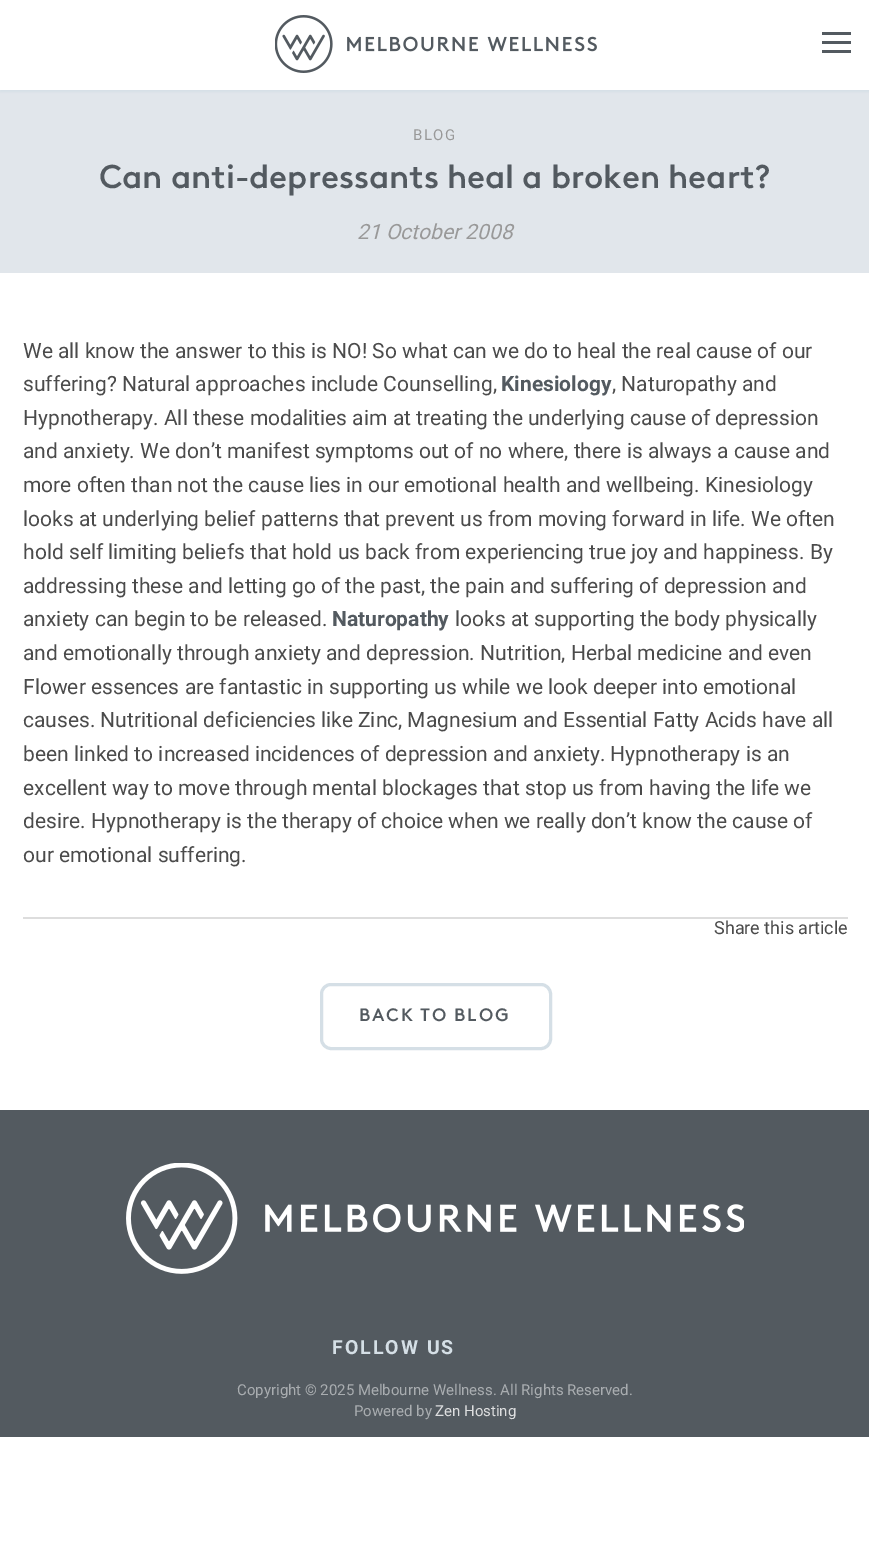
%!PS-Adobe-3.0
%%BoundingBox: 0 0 869 1563
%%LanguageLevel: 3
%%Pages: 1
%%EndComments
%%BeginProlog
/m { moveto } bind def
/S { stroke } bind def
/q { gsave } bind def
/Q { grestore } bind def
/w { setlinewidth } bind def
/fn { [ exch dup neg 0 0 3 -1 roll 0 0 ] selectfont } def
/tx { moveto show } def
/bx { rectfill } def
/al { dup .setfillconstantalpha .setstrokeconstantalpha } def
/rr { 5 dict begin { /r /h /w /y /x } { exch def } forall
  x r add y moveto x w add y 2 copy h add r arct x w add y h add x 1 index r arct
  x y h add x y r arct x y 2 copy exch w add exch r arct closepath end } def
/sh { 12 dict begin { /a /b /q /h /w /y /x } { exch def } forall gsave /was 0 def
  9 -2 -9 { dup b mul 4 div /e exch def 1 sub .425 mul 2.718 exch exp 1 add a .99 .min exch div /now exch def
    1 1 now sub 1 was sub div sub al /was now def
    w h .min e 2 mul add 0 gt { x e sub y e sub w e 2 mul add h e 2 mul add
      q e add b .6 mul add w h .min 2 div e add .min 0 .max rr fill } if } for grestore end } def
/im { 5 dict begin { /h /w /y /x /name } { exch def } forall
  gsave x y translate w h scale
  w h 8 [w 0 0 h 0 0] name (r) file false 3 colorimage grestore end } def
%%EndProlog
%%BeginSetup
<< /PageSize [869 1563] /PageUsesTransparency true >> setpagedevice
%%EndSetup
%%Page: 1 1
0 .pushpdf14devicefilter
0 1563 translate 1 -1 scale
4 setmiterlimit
1 setgray
0 0 869 1563 bx
0.882 0.902 0.922 setrgbcolor
0 90 869 183 bx
q
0 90 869 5 rectclip
0.835 0.875 0.902 setrgbcolor
0 2 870 90 0 1.5 1 sh
Q
(image0.raw) 275 15 322 58 im
0.325 0.353 0.376 setrgbcolor
822 41 29 3 bx
822 32 29 3 bx
822 50 29 3 bx
/Roboto-Regular 15 fn
0.6 setgray
413 140 m 1.5 0 (BLOG) ashow
/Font-Medium 33 fn
0.325 0.353 0.376 setrgbcolor
(Can anti-depressants heal a broken heart?) 99 188 tx
/Roboto-Italic 21 fn
0.6 setgray
(21 October 2008) 357 239 tx
/Roboto-Regular 21 fn
0.294 setgray
(We all know the answer to this is NO! So what can we do to heal the real cause of our) 23 358 tx
(suffering? Natural approaches include Counselling,) 23 391 tx
/Roboto-Bold 21 fn
0.325 0.353 0.376 setrgbcolor
(Kinesiology) 501 391 tx
/Roboto-Regular 21 fn
0.294 setgray
(, Naturopathy and) 612 391 tx
(Hypnotherapy. All these modalities aim at treating the underlying cause of depression) 23 425 tx
(and anxiety. We don’t manifest symptoms out of no where, there is always a cause and) 23 458 tx
(more often than not the cause lies in our emotional health and wellbeing. Kinesiology) 23 492 tx
(looks at underlying belief patterns that prevent us from moving forward in life. We often) 23 526 tx
(hold self limiting beliefs that hold us back from experiencing true joy and happiness. By) 23 559 tx
(addressing these and letting go of the past, the pain and suffering of depression and) 23 593 tx
(anxiety can begin to be released.) 23 626 tx
/Roboto-Bold 21 fn
0.325 0.353 0.376 setrgbcolor
(Naturopathy) 332 626 tx
/Roboto-Regular 21 fn
0.294 setgray
(looks at supporting the body physically) 455 626 tx
(and emotionally through anxiety and depression. Nutrition, Herbal medicine and even) 23 660 tx
(Flower essences are fantastic in supporting us while we look deeper into emotional) 23 694 tx
(causes. Nutritional deficiencies like Zinc, Magnesium and Essential Fatty Acids have all) 23 727 tx
(been linked to increased incidences of depression and anxiety. Hypnotherapy is an) 23 761 tx
(excellent way to move through mental blockages that stop us from having the life we) 23 795 tx
(desire. Hypnotherapy is the therapy of choice when we really don’t know the cause of) 23 828 tx
(our emotional suffering.) 23 862 tx
0.867 setgray
23 917 825 2 bx
/Roboto-Regular 18 fn
0.294 setgray
(Share this article) 714 934 tx
0.835 0.875 0.902 setrgbcolor
3 w
321.5 984.5 229 64 9.5 rr S
/Font-Medium 18 fn
0.325 0.353 0.376 setrgbcolor
359 1021 m 1.75 0 (BACK TO BLOG) ashow
0 1110 869 327 bx
(image1.raw) 126 1163 618 111 im
/Roboto-Bold 19.5 fn
0.835 0.875 0.902 setrgbcolor
332 1354 m 2 0 (FOLLOW US) ashow
/Roboto-Regular 15 fn
0.663 0.678 0.69 setrgbcolor
(Copyright © 2025 Melbourne Wellness. All Rights Reserved.) 237 1395 tx
(Powered by) 354 1416 tx
0.867 0.871 0.875 setrgbcolor
(Zen Hosting) 435 1416 tx
.poppdf14devicefilter showpage
%%EOF
